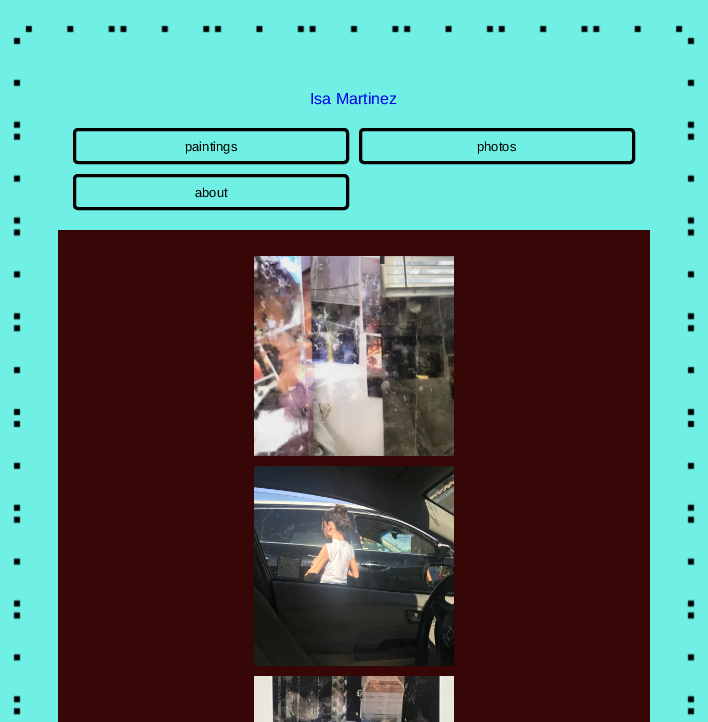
%!PS-Adobe-3.0
%%BoundingBox: 0 0 708 722
%%LanguageLevel: 3
%%Pages: 1
%%EndComments
%%BeginProlog
/S { stroke } bind def
/w { setlinewidth } bind def
/fn { [ exch dup neg 0 0 3 -1 roll 0 0 ] selectfont } def
/tx { moveto show } def
/bx { rectfill } def
/rr { 5 dict begin { /r /h /w /y /x } { exch def } forall
  x r add y moveto x w add y 2 copy h add r arct x w add y h add x 1 index r arct
  x y h add x y r arct x y 2 copy exch w add exch r arct closepath end } def
/im { 5 dict begin { /h /w /y /x /name } { exch def } forall
  gsave x y translate w h scale
  w h 8 [w 0 0 h 0 0] name (r) file false 3 colorimage grestore end } def
%%EndProlog
%%BeginSetup
<< /PageSize [708 722] >> setpagedevice
%%EndSetup
%%Page: 1 1
0 722 translate 1 -1 scale
4 setmiterlimit
0.439 0.941 0.898 setrgbcolor
0 0 708 722 bx
(image0.raw) 13 25 682 691 im
/LiberationSans-Regular 16 fn
0 0 0.933 setrgbcolor
(Isa Martinez) 310 104 tx
0 setgray
3 w
74.5 129.5 273 33 3.5 rr S
/LiberationSans-Regular 13 fn
(paintings) 185 151 tx
360.5 129.5 273 33 3.5 rr S
(photos) 477 151 tx
74.5 175.5 273 33 3.5 rr S
(about) 195 197 tx
0.216 0.027 0.027 setrgbcolor
58 230 592 492 bx
(image1.raw) 254 256 200 200 im
(image2.raw) 254 466 200 200 im
(image3.raw) 254 676 200 46 im
showpage
%%EOF
